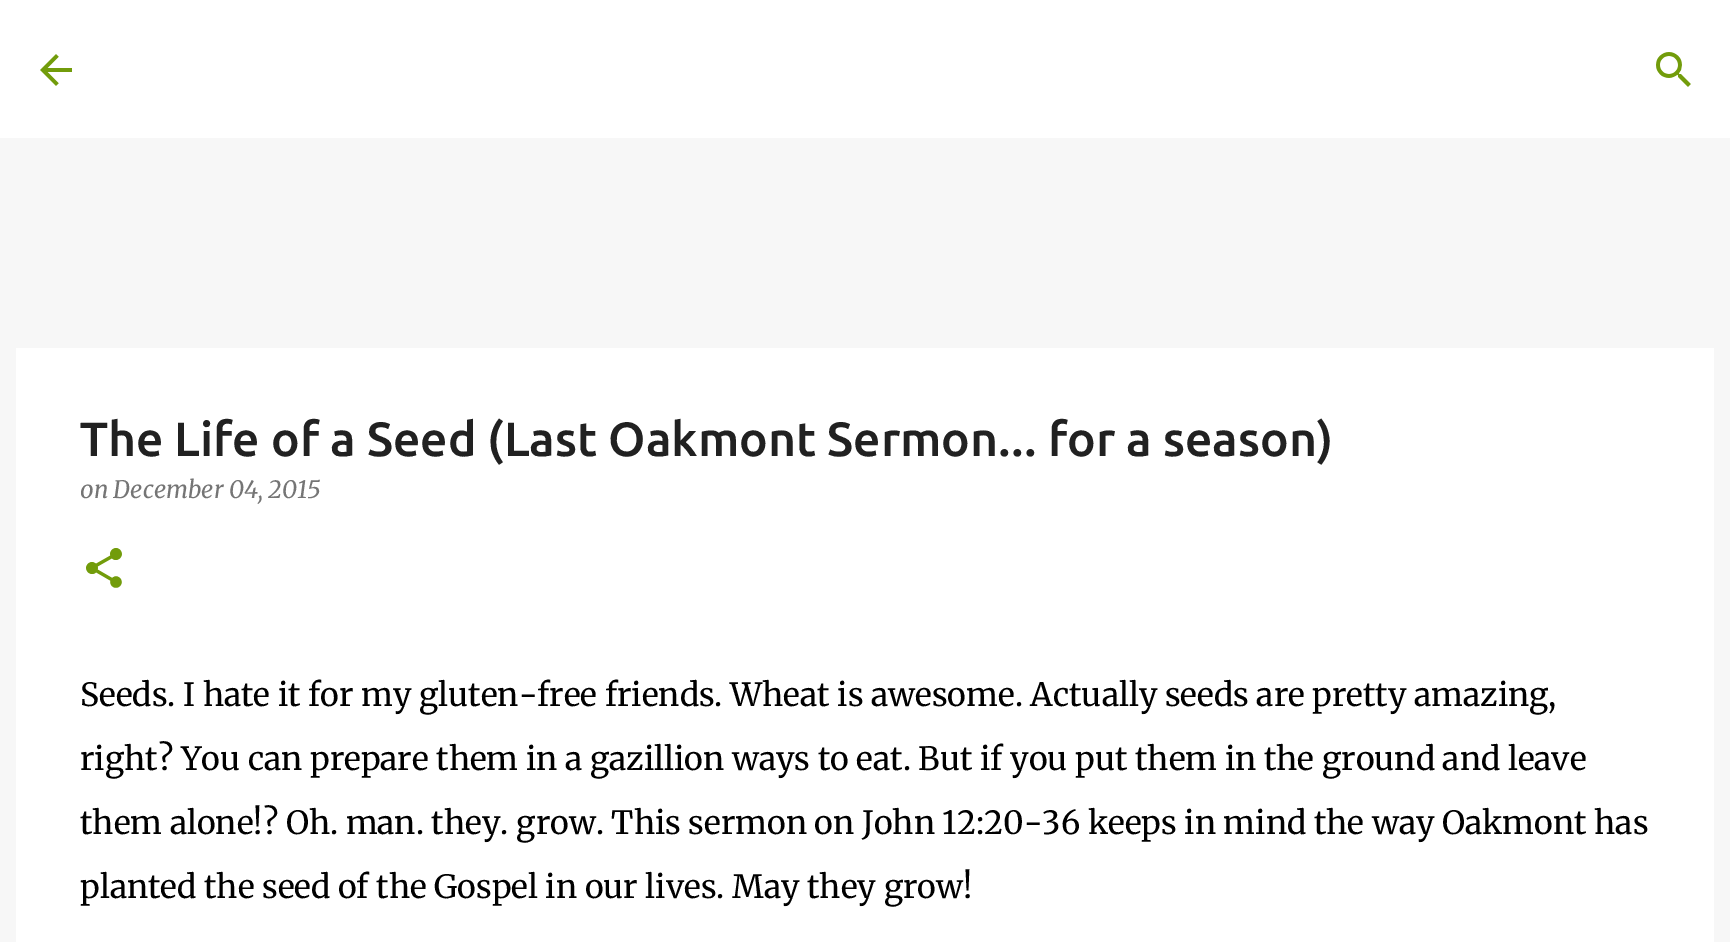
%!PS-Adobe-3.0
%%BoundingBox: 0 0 1730 942
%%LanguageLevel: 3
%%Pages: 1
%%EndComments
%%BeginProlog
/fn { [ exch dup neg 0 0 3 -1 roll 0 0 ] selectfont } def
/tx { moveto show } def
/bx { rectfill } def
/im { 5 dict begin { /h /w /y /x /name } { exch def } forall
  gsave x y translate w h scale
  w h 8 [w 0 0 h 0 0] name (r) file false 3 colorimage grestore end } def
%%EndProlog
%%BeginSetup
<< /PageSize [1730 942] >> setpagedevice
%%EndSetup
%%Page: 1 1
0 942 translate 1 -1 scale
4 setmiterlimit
0.969 setgray
0 0 1730 942 bx
1 setgray
0 0 1730 138 bx
(image0.raw) 40 54 32 32 im
(image1.raw) 1656 52 35 35 im
16 348 1698 594 bx
/Ubuntu-Medium 48 fn
0.129 setgray
(The Life of a Seed \(Last Oakmont Sermon... for a season\)) 80 456 tx
/Merriweather-Italic 24 fn
0.459 setgray
(on December 04, 2015) 80 498 tx
(image2.raw) 86 548 36 40 im
/Merriweather-Light 32 fn
0 setgray
(Seeds. I hate it for my gluten-free friends. Wheat is awesome. Actually seeds are pretty amazing,) 80 706 tx
(right? You can prepare them in a gazillion ways to eat. But if you put them in the ground and leave) 80 770 tx
(them alone!? Oh. man. they. grow. This sermon on John 12:20-36 keeps in mind the way Oakmont has) 80 834 tx
(planted the seed of the Gospel in our lives. May they grow!) 80 898 tx
showpage
%%EOF
